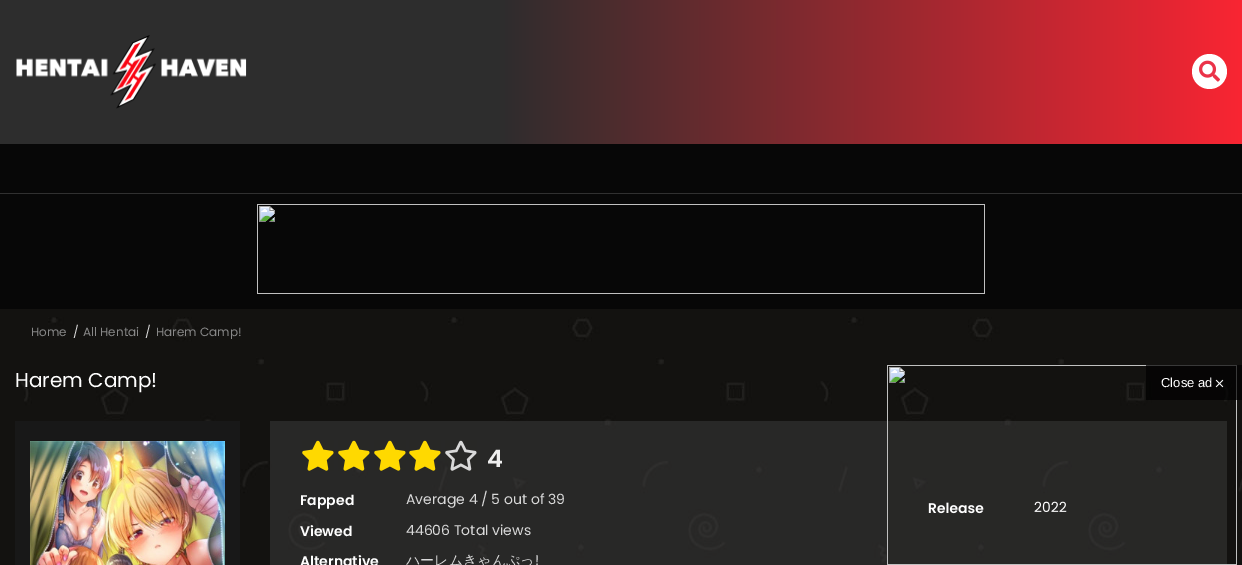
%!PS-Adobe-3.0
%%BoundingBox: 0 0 1242 565
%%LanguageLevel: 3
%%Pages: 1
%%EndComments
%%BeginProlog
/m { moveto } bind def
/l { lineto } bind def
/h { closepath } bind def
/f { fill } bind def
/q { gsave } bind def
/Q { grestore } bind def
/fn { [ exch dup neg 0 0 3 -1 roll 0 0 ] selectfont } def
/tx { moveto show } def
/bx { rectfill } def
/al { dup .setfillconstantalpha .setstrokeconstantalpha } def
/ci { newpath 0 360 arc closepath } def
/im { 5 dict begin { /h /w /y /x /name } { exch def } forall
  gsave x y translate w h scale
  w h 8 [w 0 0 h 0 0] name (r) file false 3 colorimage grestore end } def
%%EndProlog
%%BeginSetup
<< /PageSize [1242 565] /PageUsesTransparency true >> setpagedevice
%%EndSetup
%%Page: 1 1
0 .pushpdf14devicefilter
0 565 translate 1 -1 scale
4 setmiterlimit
0.027 setgray
0 0 1242 565 bx
q 0 0 m 1242 0 l 1242 144 l 0 144 l h clip newpath
<< /ShadingType 2 /ColorSpace /DeviceRGB /Coords [0 72 1242 72] /Extend [true true] /Function << /FunctionType 3 /Domain [0 1] /Functions [<< /FunctionType 2 /Domain [0 1] /C0 [0.176 0.176 0.176] /C1 [0.176 0.176 0.176] /N 1 >> << /FunctionType 2 /Domain [0 1] /C0 [0.176 0.176 0.176] /C1 [0.976 0.145 0.2] /N 1 >>] /Bounds [0.4] /Encode [0 1 0 1] >> >> shfill Q
(image0.raw) 16 35 231 74 im
1 setgray
1209.5 71.5 17.5 ci f
(image1.raw) 1199 60 21 22 im
0.188 setgray
0 193 1242 1 bx
(image2.raw) 257 204 728 90 im
(image3.raw) 0 309 1242 256 im
/Poppins-Regular 12 fn
0.533 setgray
(Home) 31 336 tx
0.851 setgray
(/) 73 336 tx
0.533 setgray
(All Hentai) 83 336 tx
0.851 setgray
(/) 145 336 tx
0.533 setgray
(Harem Camp!) 156 336 tx
/Poppins-Regular 20 fn
1 setgray
(Harem Camp!) 15 387 tx
0.094 setgray
15 421 225 144 bx
(image4.raw) 30 441 195 124 im
0.5 al
0.239 setgray
270 421 957 144 bx
1 al
(image5.raw) 302 440 32 31 im
(image6.raw) 338 440 32 31 im
(image5.raw) 374 440 32 31 im
(image7.raw) 409 440 32 31 im
(image8.raw) 445 440 32 31 im
/Poppins-SemiBold 24 fn
0.933 setgray
(4) 487 467 tx
/Poppins-SemiBold 14 fn
1 setgray
(Fapped) 300 505 tx
/Poppins-Regular 14 fn
0.851 setgray
(Average 4 / 5 out of 39) 406 504 tx
/Poppins-SemiBold 14 fn
1 setgray
(Viewed) 300 536 tx
/Poppins-Regular 14 fn
0.851 setgray
(44606 Total views) 406 535 tx
/Poppins-SemiBold 14 fn
1 setgray
(Alternative) 300 566 tx
/WenQuanYiZenHei-Medium 14 fn
0.851 setgray
(ハーレムきゃんぷっ) 406 565 tx
/Poppins-Regular 14 fn
(!) 535 565 tx
/Poppins-SemiBold 14 fn
1 setgray
(Release) 928 513 tx
/Poppins-Regular 14 fn
(2022) 1034 512 tx
(image9.raw) 887 365 350 200 im
0.7 al
0 setgray
1146 365 96 35 bx
/LiberationSans-Regular 13 fn
1 al
1 setgray
(Close ad) 1161 387 tx
(image10.raw) 1215 379 9 9 im
.poppdf14devicefilter showpage
%%EOF
